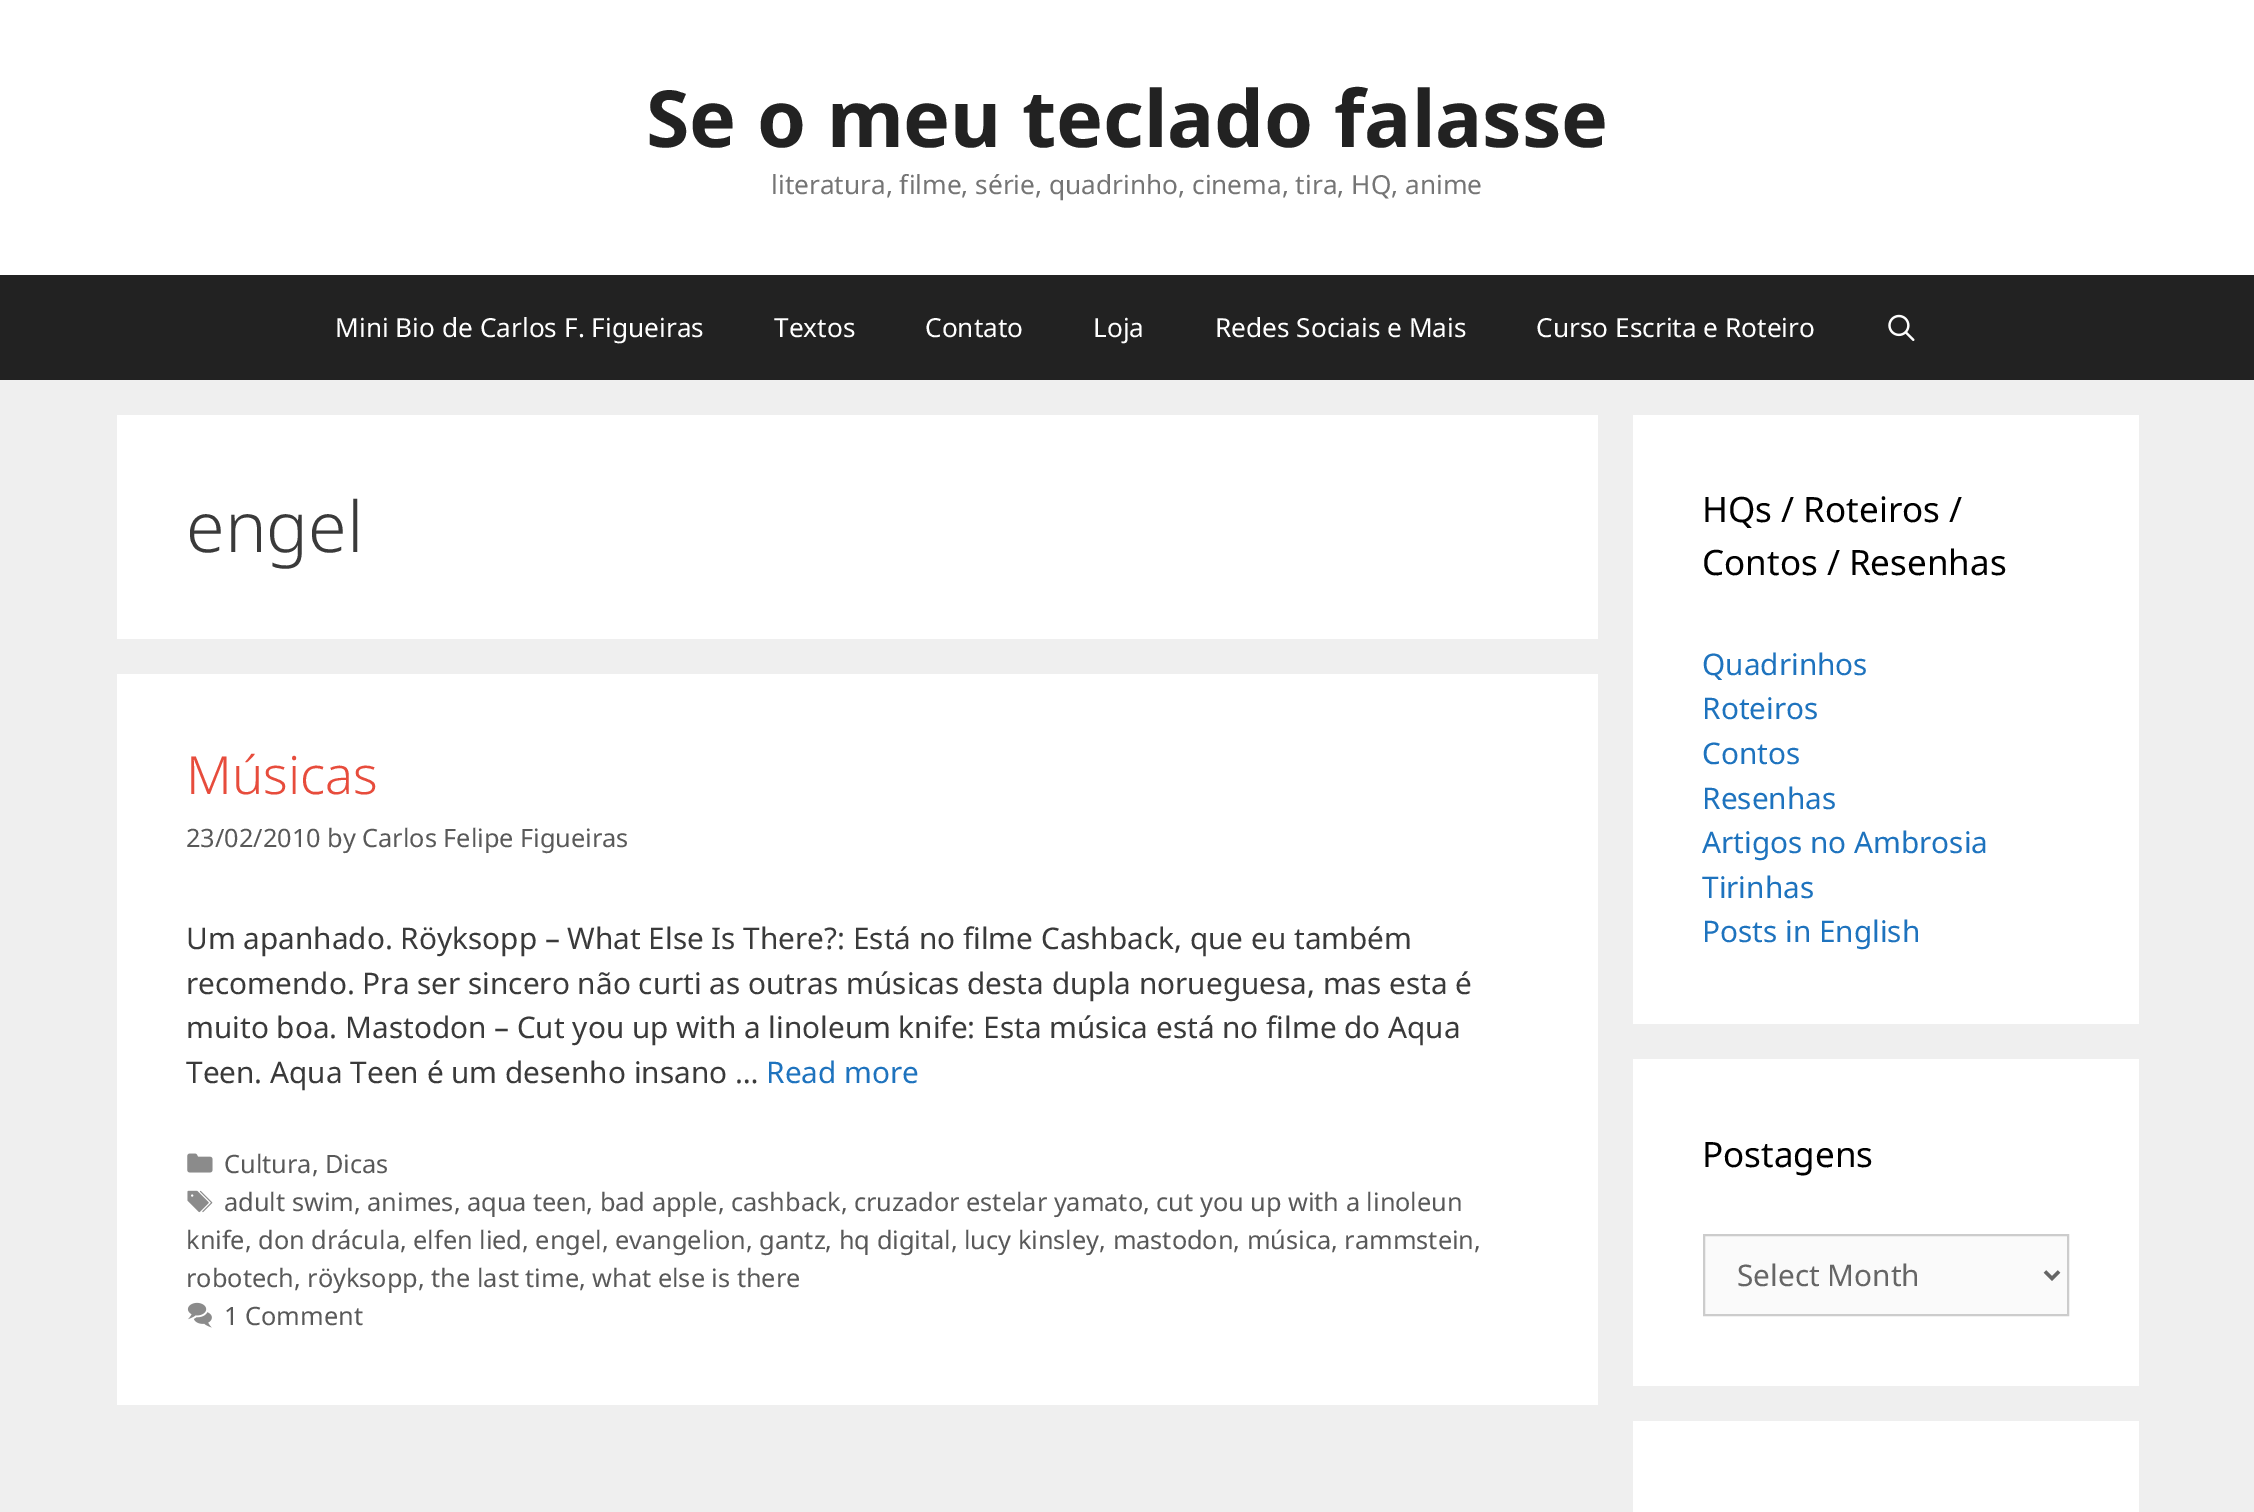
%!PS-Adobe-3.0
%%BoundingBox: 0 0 2254 1512
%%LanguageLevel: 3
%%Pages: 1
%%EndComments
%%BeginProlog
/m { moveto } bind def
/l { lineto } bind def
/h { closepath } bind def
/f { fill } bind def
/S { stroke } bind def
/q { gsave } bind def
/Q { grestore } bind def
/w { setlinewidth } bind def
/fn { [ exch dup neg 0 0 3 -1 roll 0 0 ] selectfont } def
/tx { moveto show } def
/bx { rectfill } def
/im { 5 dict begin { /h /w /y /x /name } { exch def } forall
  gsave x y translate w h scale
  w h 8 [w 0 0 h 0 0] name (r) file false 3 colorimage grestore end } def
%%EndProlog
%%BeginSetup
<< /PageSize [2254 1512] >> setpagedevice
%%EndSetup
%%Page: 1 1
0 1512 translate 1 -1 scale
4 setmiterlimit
0.937 setgray
0 0 2254 1512 bx
1 setgray
0 0 2254 275 bx
/NotoSans-Bold 78.75 fn
0.133 setgray
(Se o meu teclado falasse) 646 147 tx
/NotoSans-Regular 26.25 fn
0.459 setgray
(literatura, filme, série, quadrinho, cinema, tira, HQ, anime) 771 194 tx
0.133 setgray
0 275 2254 105 bx
1 setgray
(Mini Bio de Carlos F. Figueiras) 335 337 tx
(Textos) 774 337 tx
(Contato) 925 337 tx
(Loja) 1093 337 tx
(Redes Sociais e Mais) 1215 337 tx
(Curso Escrita e Roteiro) 1536 337 tx
(image0.raw) 1888 314 27 27 im
117 415 1481 224 bx
/NotoSans-Light 70 fn
0.227 setgray
(engel) 186 552 tx
1 setgray
117 674 1481 731 bx
/NotoSans-Light 52.5 fn
0.906 0.298 0.235 setrgbcolor
(Músicas) 186 794 tx
/NotoSans-Regular 25.3 fn
0.349 setgray
(23/02/2010 by Carlos Felipe Figueiras) 186 847 tx
/NotoSans-Regular 29.75 fn
0.227 setgray
(Um apanhado. Röyksopp – What Else Is There?: Está no filme Cashback, que eu também) 186 949 tx
(recomendo. Pra ser sincero não curti as outras músicas desta dupla norueguesa, mas esta é) 186 994 tx
(muito boa. Mastodon – Cut you up with a linoleum knife: Esta música está no filme do Aqua) 186 1038 tx
(Teen. Aqua Teen é um desenho insano …) 186 1083 tx
0.118 0.451 0.745 setrgbcolor
(Read more) 766 1083 tx
(image1.raw) 187 1153 26 20 im
/NotoSans-Regular 25.3 fn
0.349 setgray
(Cultura, Dicas) 224 1173 tx
(image2.raw) 187 1190 26 23 im
(adult swim, animes, aqua teen, bad apple, cashback, cruzador estelar yamato, cut you up with a linoleun) 224 1211 tx
(knife, don drácula, elfen lied, engel, evangelion, gantz, hq digital, lucy kinsley, mastodon, música, rammstein,) 186 1249 tx
(robotech, röyksopp, the last time, what else is there) 186 1287 tx
(image3.raw) 187 1302 25 26 im
(1 Comment) 224 1325 tx
1 setgray
1633 415 506 609 bx
/NotoSans-Regular 35 fn
0 setgray
(HQs / Roteiros /) 1702 522 tx
(Contos / Resenhas) 1702 575 tx
/NotoSans-Regular 29.75 fn
0.118 0.451 0.745 setrgbcolor
(Quadrinhos) 1702 675 tx
(Roteiros) 1702 719 tx
(Contos) 1702 764 tx
(Resenhas) 1702 809 tx
(Artigos no Ambrosia) 1702 853 tx
(Tirinhas) 1702 898 tx
(Posts in English) 1702 942 tx
1 setgray
1633 1059 506 327 bx
/NotoSans-Regular 35 fn
0 setgray
(Postagens) 1702 1167 tx
0.98 setgray
1704 1235 m 2068 1235 l 2068 1315 l 1704 1315 l h q f Q
0.8 setgray
2 w
S
0.4 setgray
3.5 w
2045 1271.5 m 2052 1278.5 l 2059 1271.5 l S
/NotoSans-Regular 29.75 fn
(Select Month) 1737 1286 tx
1 setgray
1633 1421 506 91 bx
showpage
%%EOF
